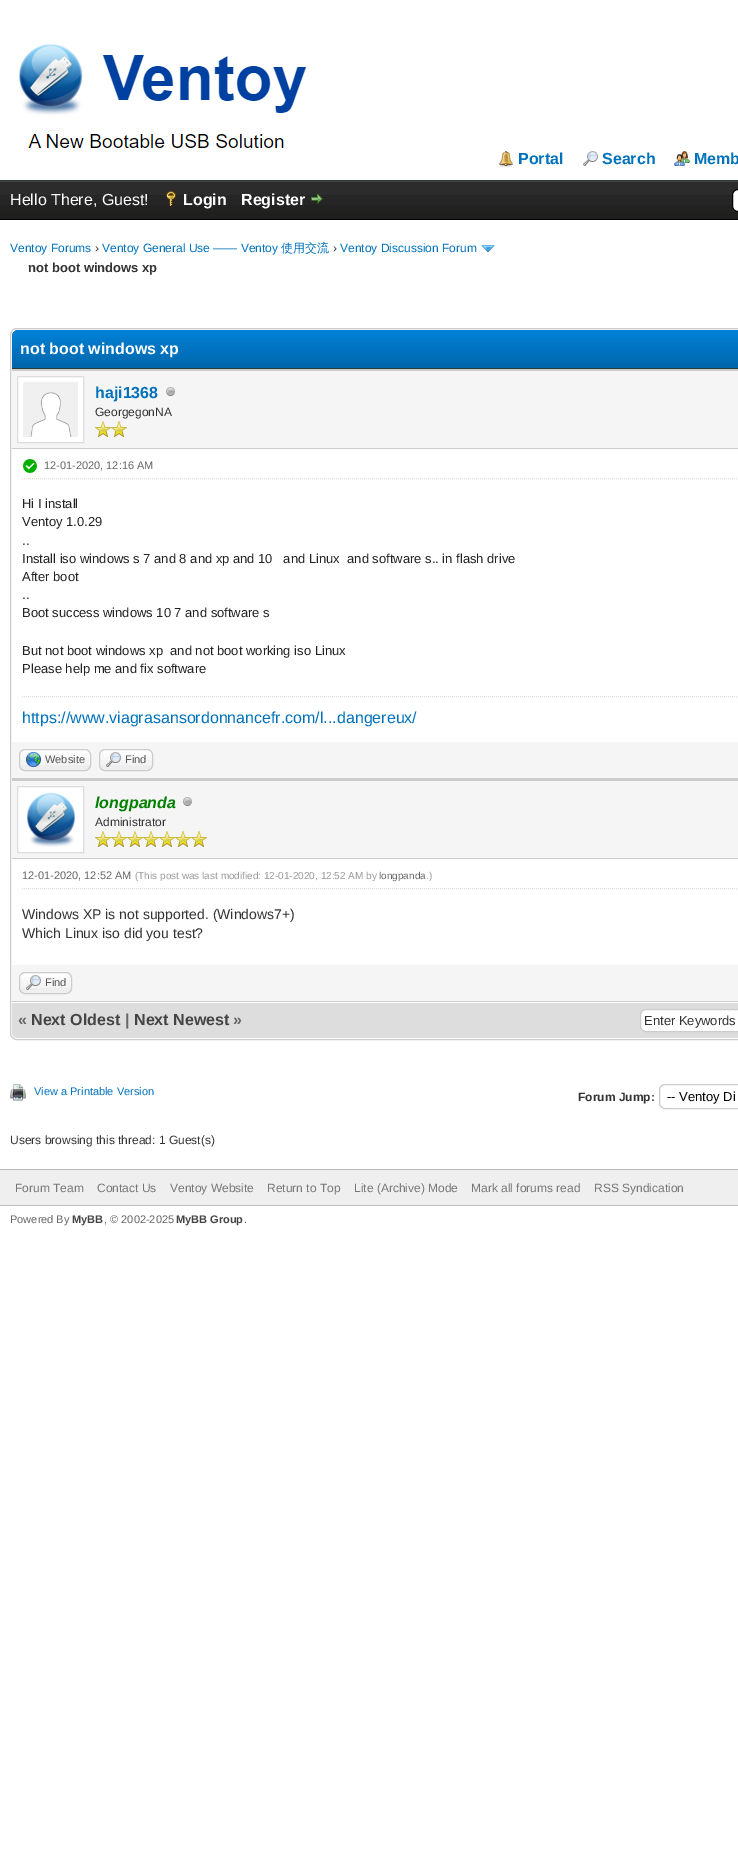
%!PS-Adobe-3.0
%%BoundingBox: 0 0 738 1875
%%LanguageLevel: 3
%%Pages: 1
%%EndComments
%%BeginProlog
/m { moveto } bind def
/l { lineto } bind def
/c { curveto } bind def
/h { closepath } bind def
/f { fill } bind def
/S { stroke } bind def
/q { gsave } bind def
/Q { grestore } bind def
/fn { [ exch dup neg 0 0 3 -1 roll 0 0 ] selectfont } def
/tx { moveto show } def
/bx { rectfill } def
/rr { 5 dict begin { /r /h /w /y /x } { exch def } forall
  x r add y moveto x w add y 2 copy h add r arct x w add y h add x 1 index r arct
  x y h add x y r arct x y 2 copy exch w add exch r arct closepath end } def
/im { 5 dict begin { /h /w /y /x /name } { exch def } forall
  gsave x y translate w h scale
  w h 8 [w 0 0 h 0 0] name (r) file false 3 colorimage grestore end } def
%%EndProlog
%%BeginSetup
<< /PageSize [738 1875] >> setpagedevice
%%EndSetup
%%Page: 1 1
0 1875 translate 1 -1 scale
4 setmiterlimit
1 setgray
0 0 738 1875 bx
0.149 0.235 0.188 setrgbcolor
0 180 738 1 bx
(image0.raw) 19 44 288 104 im
(image1.raw) 499 151 14 16 im
/LiberationSans-Bold 16 fn
0 0.447 0.737 setrgbcolor
(Portal) 518 164 tx
(image2.raw) 583 151 15 15 im
(Search) 602 164 tx
(image3.raw) 674 151 16 15 im
(Memb) 694 164 tx
(image4.raw) 0 182 738 37 im
0.267 setgray
0 181 738 1 bx
0 setgray
0 219 738 1 bx
/LiberationSans-Regular 16 fn
1 setgray
(Hello There, Guest!) 10 205 tx
(image5.raw) 166 191 10 16 im
/LiberationSans-Bold 16 fn
(Login) 183 205 tx
(Register) 241 205 tx
(image6.raw) 311 194 12 10 im
732.5 189.5 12 22 5.5 rr q f Q
0 setgray
S
/LiberationSans-Regular 12 fn
0 0.447 0.737 setrgbcolor
(Ventoy Forums) 10 252 tx
0.2 setgray
(›) 95 252 tx
0 0.447 0.737 setrgbcolor
(Ventoy General Use —— Ventoy) 102 252 tx
/WenQuanYiZenHei-Medium 12 fn
(使用交流) 281 252 tx
/LiberationSans-Regular 12 fn
0.2 setgray
(›) 333 252 tx
0 0.447 0.737 setrgbcolor
(Ventoy Discussion Forum) 340 252 tx
(image7.raw) 481 245 14 7 im
/LiberationSans-Bold 13 fn
0.2 setgray
(not boot windows xp) 28 272 tx
0.8 setgray
10.5 328.5 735 711 6.5 rr S
(image8.raw) 12 330 726 38 im
0.149 0.235 0.188 setrgbcolor
12 368 726 1 bx
/LiberationSans-Bold 16 fn
1 setgray
(not boot windows xp) 20 354 tx
0.961 setgray
12 371 726 77 bx
0.8 setgray
12 369 726 2 bx
12 448 726 1 bx
1 setgray
17.5 376.5 m 83.5 376.5 l 83.5 442.5 l 17.5 442.5 l h q f Q
0.867 setgray
S
(image9.raw) 23 382 55 55 im
0 0.447 0.737 setrgbcolor
(haji1368) 95 398 tx
(image10.raw) 166 387 9 9 im
/LiberationSans-Regular 12 fn
0.2 setgray
(GeorgegonNA) 95 416 tx
(image11.raw) 95 421 16 16 im
(image11.raw) 111 421 16 16 im
0.867 setgray
[1 1] 0 setdash
22 478.5 m 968 478.5 l S
(image12.raw) 23 459 14 14 im
/LiberationSans-Regular 11 fn
0.4 setgray
(12-01-2020, 12:16 AM) 44 469 tx
/LiberationSans-Regular 13 fn
0.133 setgray
(Hi I install) 22 508 tx
(Ventoy 1.0.29) 22 526 tx
(..) 22 545 tx
(Install iso windows s 7 and 8 and xp and 10   and Linux  and software s.. in flash drive) 22 563 tx
(After boot) 22 581 tx
(..) 22 599 tx
(Boot success windows 10 7 and software s) 22 617 tx
(But not boot windows xp  and not boot working iso Linux) 22 655 tx
(Please help me and fix software) 22 673 tx
0.867 setgray
22 696.5 m 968 696.5 l S
/LiberationSans-Regular 16 fn
0 0.447 0.737 setrgbcolor
(https://www.viagrasansordonnancefr.com/l...dangereux/) 22 723 tx
0.961 setgray
12 742 726 36 bx
0.8 setgray
12 778 726 3 bx
0.933 setgray
19 749 72 22 6 rr f
(image13.raw) 19 750 72 15 im
0.8 setgray
[] 0 setdash
19.5 749.5 71 21 5.5 rr S
(image14.raw) 26 752 15 15 im
/LiberationSans-Regular 11 fn
0.333 setgray
(Website) 45 763 tx
0.933 setgray
99 749 54 22 6 rr f
(image15.raw) 99 750 54 15 im
0.8 setgray
99.5 749.5 53 21 5.5 rr S
(image16.raw) 106 752 15 15 im
0.333 setgray
(Find) 125 763 tx
0.961 setgray
12 781 726 77 bx
0.8 setgray
12 858 726 1 bx
1 setgray
17.5 786.5 m 83.5 786.5 l 83.5 852.5 l 17.5 852.5 l h q f Q
0.867 setgray
S
(image17.raw) 26 792 50 55 im
/LiberationSans-BoldItalic 16 fn
0 0.502 0 setrgbcolor
(longpanda) 95 808 tx
(image10.raw) 183 797 9 9 im
/LiberationSans-Regular 12 fn
0.2 setgray
(Administrator) 95 826 tx
(image11.raw) 95 831 16 16 im
(image11.raw) 111 831 16 16 im
(image11.raw) 127 831 16 16 im
(image11.raw) 143 831 16 16 im
(image11.raw) 159 831 16 16 im
(image11.raw) 175 831 16 16 im
(image11.raw) 191 831 16 16 im
0.867 setgray
[1 1] 0 setdash
22 888.5 m 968 888.5 l S
/LiberationSans-Regular 11 fn
0.4 setgray
(12-01-2020, 12:52 AM) 22 879 tx
/LiberationSans-Regular 10 fn
0.6 setgray
(\(This post was last modified: 12-01-2020, 12:52 AM by) 135 879 tx
0.4 setgray
(longpanda) 379 879 tx
0.6 setgray
(.\)) 426 879 tx
/LiberationSans-Regular 14 fn
0.2 setgray
(Windows XP is not supported. \(Windows7+\)) 22 919 tx
(Which Linux iso did you test?) 22 938 tx
0.961 setgray
12 965 726 36 bx
0.8 setgray
12 1001 726 1 bx
0.933 setgray
19 972 53 22 6 rr f
(image18.raw) 19 973 53 15 im
0.8 setgray
[] 0 setdash
19.5 972.5 52 21 5.5 rr S
(image16.raw) 26 975 15 15 im
/LiberationSans-Regular 11 fn
0.333 setgray
(Find) 45 986 tx
0.867 setgray
12 1002 m 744 1002 l 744 1032 l 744 1035.5 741.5 1038 738 1038 c 18 1038 l 14.5 1038 12 1035.5 12 1032 c h f
1 setgray
12 1002 726 1 bx
/LiberationSans-Bold 16 fn
0.4 setgray
(«) 18 1025 tx
0.267 setgray
(Next Oldest) 31 1025 tx
0.4 setgray
(|) 125 1025 tx
0.267 setgray
(Next Newest) 134 1025 tx
0.4 setgray
(») 233 1025 tx
1 setgray
640.5 1009.5 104 22 5.5 rr q f Q
0.8 setgray
S
/LiberationSans-Regular 13 fn
0.2 setgray
(Enter Keywords) 644 1025 tx
(image19.raw) 10 1084 16 17 im
/LiberationSans-Regular 11 fn
0 0.447 0.737 setrgbcolor
(View a Printable Version) 34 1095 tx
/LiberationSans-Bold 12 fn
0.2 setgray
(Forum Jump:) 578 1101 tx
0.8 setgray
659.5 1084.5 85 24 5.5 rr S
/LiberationSans-Regular 13 fn
0 setgray
(-- Ventoy Di) 667 1101 tx
/LiberationSans-Regular 12 fn
0.2 setgray
(Users browsing this thread: 1 Guest\(s\)) 10 1144 tx
0.937 setgray
0 1170 738 35 bx
0.733 setgray
0 1169 738 1 bx
0 1205 738 1 bx
0.467 setgray
(Forum Team) 15 1192 tx
(Contact Us) 97 1192 tx
(Ventoy Website) 170 1192 tx
(Return to Top) 267 1192 tx
(Lite \(Archive\) Mode) 354 1192 tx
(Mark all forums read) 471 1192 tx
(RSS Syndication) 594 1192 tx
/LiberationSans-Regular 11 fn
0.4 setgray
(Powered By) 10 1223 tx
/LiberationSans-Bold 11 fn
0.267 setgray
(MyBB) 72 1223 tx
/LiberationSans-Regular 11 fn
0.4 setgray
(, © 2002-2025) 104 1223 tx
/LiberationSans-Bold 11 fn
0.267 setgray
(MyBB Group) 176 1223 tx
/LiberationSans-Regular 11 fn
0.4 setgray
(.) 244 1223 tx
showpage
%%EOF
